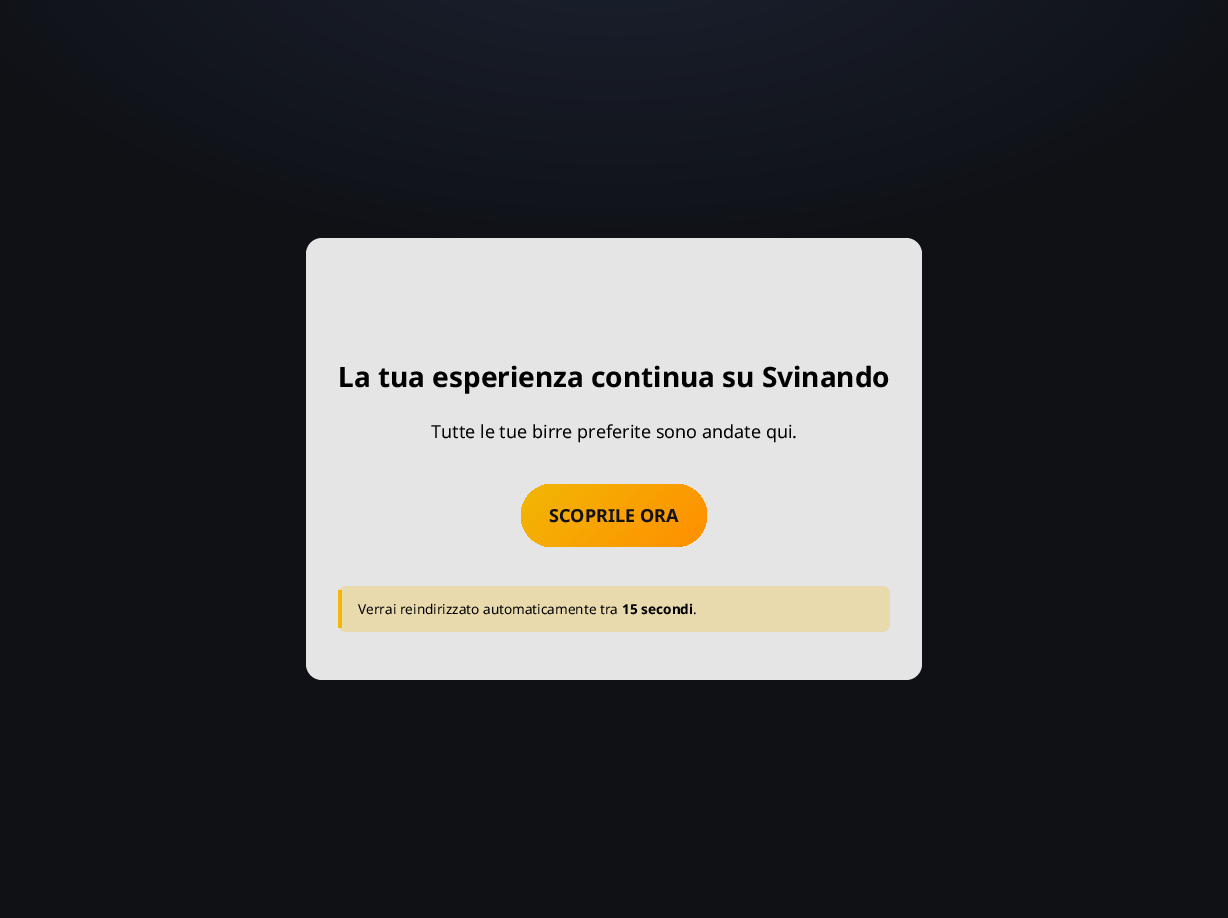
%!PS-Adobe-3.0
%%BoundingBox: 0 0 1228 918
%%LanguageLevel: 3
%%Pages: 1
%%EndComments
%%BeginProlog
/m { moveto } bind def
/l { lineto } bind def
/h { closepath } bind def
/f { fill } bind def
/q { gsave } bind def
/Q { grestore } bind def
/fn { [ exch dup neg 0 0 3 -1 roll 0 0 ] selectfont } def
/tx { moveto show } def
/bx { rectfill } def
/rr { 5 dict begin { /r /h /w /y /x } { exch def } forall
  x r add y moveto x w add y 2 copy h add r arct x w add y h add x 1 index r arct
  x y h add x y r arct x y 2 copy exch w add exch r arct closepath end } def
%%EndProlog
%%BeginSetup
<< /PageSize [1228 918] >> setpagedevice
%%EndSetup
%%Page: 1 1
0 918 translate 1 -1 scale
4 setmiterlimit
1 setgray
0 0 1228 918 bx
q 0 0 m 1228 0 l 1228 918 l 0 918 l h clip newpath 614 -92 translate 1200 600 scale
<< /ShadingType 3 /ColorSpace /DeviceRGB /Coords [0 0 0 0 0 1] /Extend [true true] /Function << /FunctionType 3 /Domain [0 1] /Functions [<< /FunctionType 2 /Domain [0 1] /C0 [0.11 0.133 0.2] /C1 [0.059 0.067 0.082] /N 1 >> << /FunctionType 2 /Domain [0 1] /C0 [0.059 0.067 0.082] /C1 [0.059 0.067 0.082] /N 1 >>] /Bounds [0.6] /Encode [0 1 0 1] >> >> shfill Q
0.898 setgray
306 238 616 442 16 rr f
/NotoSans-Bold 28 fn
0 setgray
(La tua esperienza continua su Svinando) 338 387 tx
/NotoSans-Regular 18 fn
(Tutte le tue birre preferite sono andate qui.) 431 438 tx
q 521 484 186 63 31.5 rr clip newpath
<< /ShadingType 2 /ColorSpace /DeviceRGB /Coords [552 453 676 578] /Extend [true true] /Function << /FunctionType 2 /Domain [0 1] /C0 [0.949 0.718 0.02] /C1 [1 0.561 0] /N 1 >> >> shfill Q
/NotoSans-Bold 18 fn
0.067 setgray
(SCOPRILE ORA) 549 522 tx
0.91 0.855 0.678 setrgbcolor
338 586 552 46 8 rr f
0.949 0.718 0.02 setrgbcolor
338 590 4 38 bx
/NotoSans-Regular 13.6 fn
0 setgray
(Verrai reindirizzato automaticamente tra) 358 614 tx
/NotoSans-Bold 13.6 fn
(15 secondi) 622 614 tx
/NotoSans-Regular 13.6 fn
(.) 693 614 tx
showpage
%%EOF
